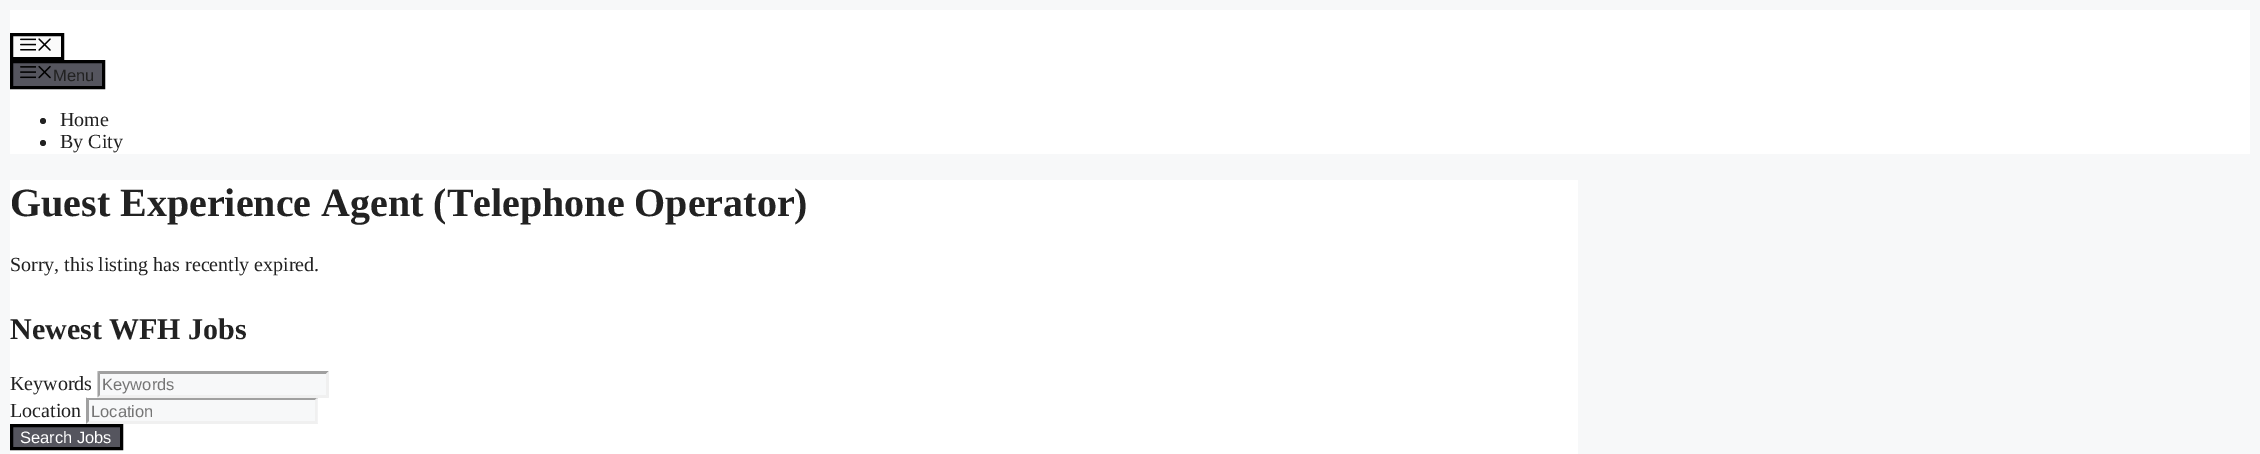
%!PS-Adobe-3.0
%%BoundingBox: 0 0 2260 454
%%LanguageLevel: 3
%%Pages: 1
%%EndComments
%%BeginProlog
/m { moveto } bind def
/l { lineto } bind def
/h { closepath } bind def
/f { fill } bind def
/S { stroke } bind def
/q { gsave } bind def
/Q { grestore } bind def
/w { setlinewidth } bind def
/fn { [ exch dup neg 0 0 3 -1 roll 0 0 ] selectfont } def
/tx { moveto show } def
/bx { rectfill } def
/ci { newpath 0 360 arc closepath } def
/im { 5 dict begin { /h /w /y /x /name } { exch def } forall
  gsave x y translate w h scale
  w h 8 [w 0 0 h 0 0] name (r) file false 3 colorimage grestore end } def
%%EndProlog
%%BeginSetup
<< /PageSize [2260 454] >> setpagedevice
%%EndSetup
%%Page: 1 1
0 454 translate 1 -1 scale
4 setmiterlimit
0.969 0.973 0.976 setrgbcolor
0 0 2260 454 bx
1 setgray
10 10 2240 144 bx
0.98 setgray
11.5 34.5 m 62.5 34.5 l 62.5 58.5 l 11.5 58.5 l h q f Q
0 setgray
3 w
S
(image0.raw) 20 38 16 13 im
(image1.raw) 38 38 13 13 im
0.333 0.333 0.369 setrgbcolor
11.5 61.5 m 103.5 61.5 l 103.5 87.5 l 11.5 87.5 l h q f Q
0 setgray
S
(image2.raw) 20 66 16 13 im
(image3.raw) 38 65 13 14 im
/LiberationSans-Regular 16.5 fn
0.133 setgray
(Menu) 53 81 tx
43 121 3 ci f
/LiberationSerif-Regular 20 fn
(Home) 60 126 tx
43 143 3 ci f
(By City) 60 148 tx
1 setgray
10 180 1568 274 bx
/LiberationSerif-Bold 40 fn
0.133 setgray
(Guest Experience Agent \(Telephone Operator\)) 10 216 tx
/LiberationSerif-Regular 20 fn
(Sorry, this listing has recently expired.) 10 271 tx
/LiberationSerif-Bold 30 fn
(Newest WFH Jobs) 10 339 tx
/LiberationSerif-Regular 20 fn
(Keywords) 10 390 tx
0.969 0.973 0.976 setrgbcolor
98 371 231 27 bx
0.627 setgray
98 371 m 329 371 l 326 374 l 100 374 l h f
0.941 setgray
329 371 m 329 397.5 l 326 395 l 326 374 l h f
329 398 m 98 398 l 100 395 l 326 395 l h f
0.627 setgray
97.5 397.5 m 97.5 371 l 100 374 l 100 395 l h f
/LiberationSans-Regular 16.5 fn
0.459 setgray
(Keywords) 102 390 tx
/LiberationSerif-Regular 20 fn
0.133 setgray
(Location) 10 417 tx
0.969 0.973 0.976 setrgbcolor
86 398 232 26 bx
0.627 setgray
86 398 m 318 398 l 315 400 l 89 400 l h f
0.941 setgray
317.5 397.5 m 317.5 424 l 315 421 l 315 400 l h f
318 424 m 86 424 l 89 421 l 315 421 l h f
0.627 setgray
86 424 m 86 397.5 l 89 400 l 89 421 l h f
/LiberationSans-Regular 16.5 fn
0.459 setgray
(Location) 91 417 tx
0.333 0.333 0.369 setrgbcolor
11.5 425.5 m 121.5 425.5 l 121.5 448.5 l 11.5 448.5 l h q f Q
0 setgray
S
1 setgray
(Search Jobs) 20 443 tx
showpage
%%EOF
